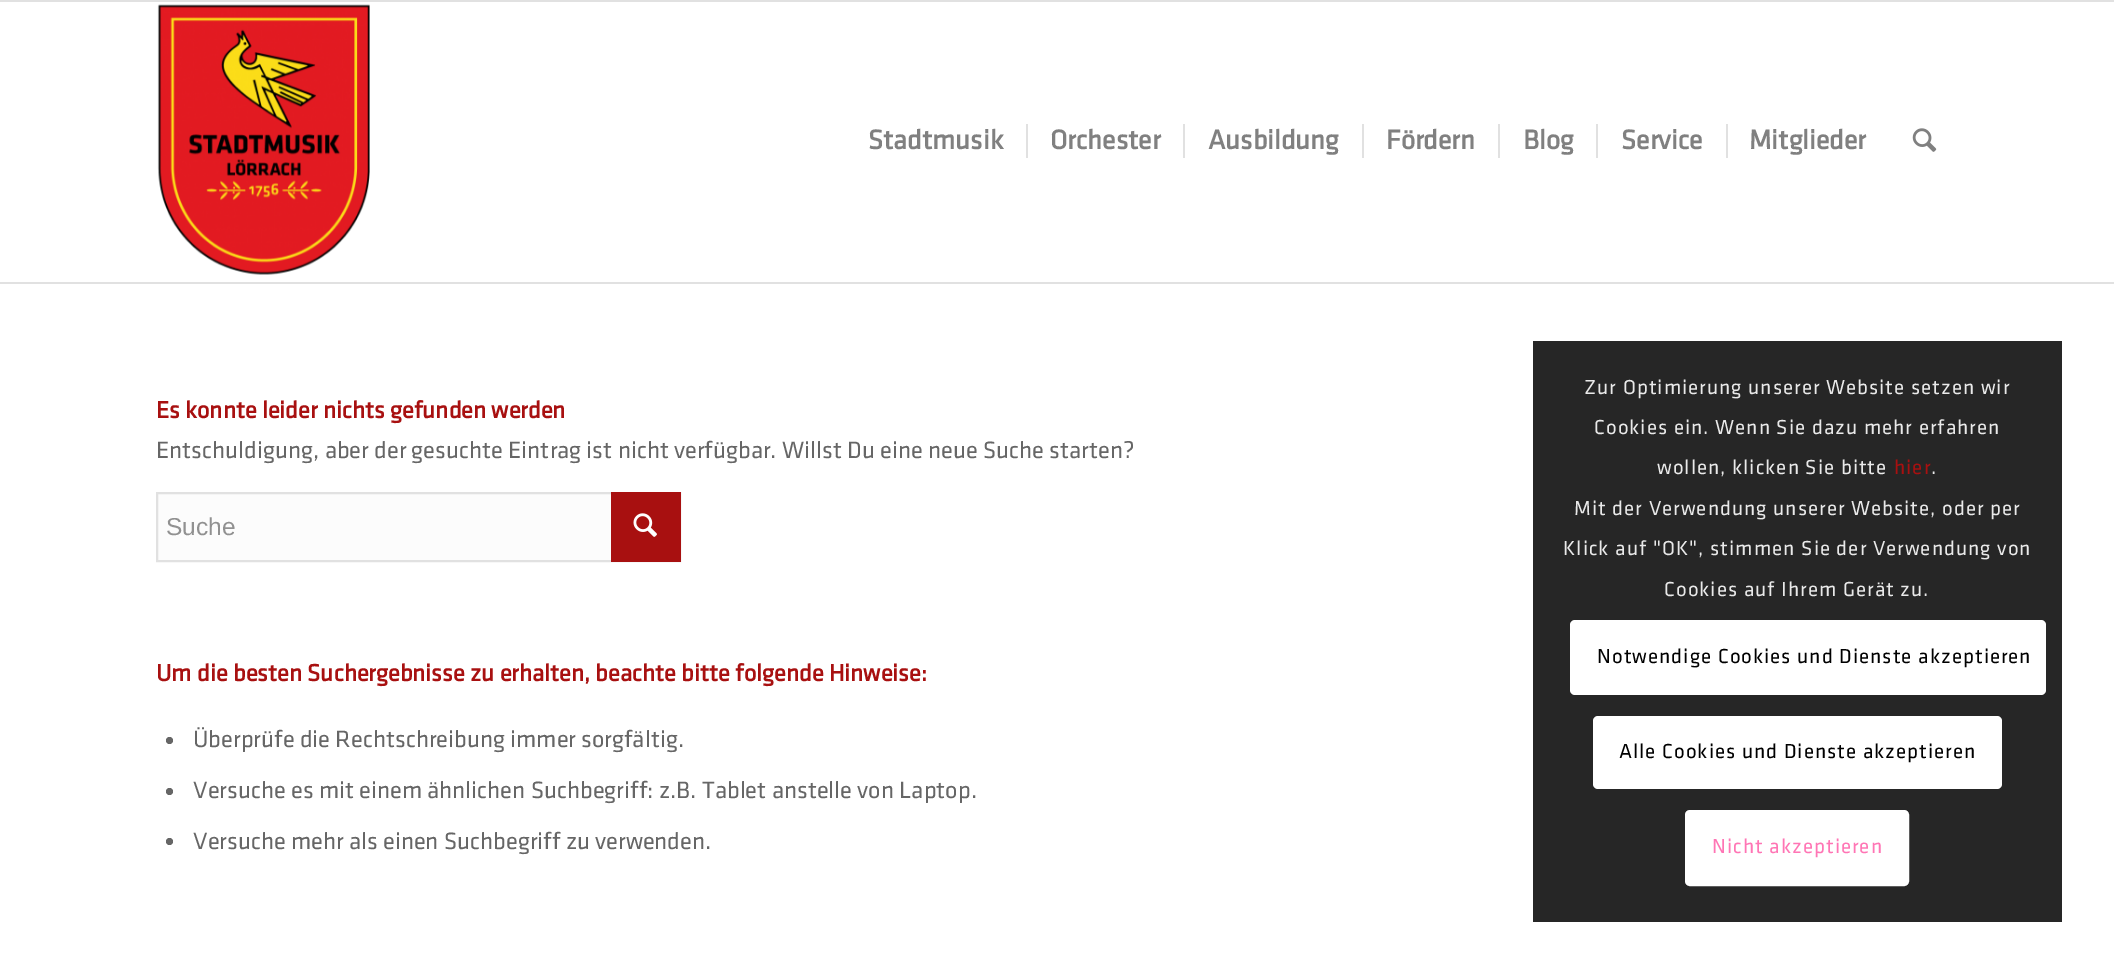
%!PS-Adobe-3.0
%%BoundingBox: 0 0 2114 974
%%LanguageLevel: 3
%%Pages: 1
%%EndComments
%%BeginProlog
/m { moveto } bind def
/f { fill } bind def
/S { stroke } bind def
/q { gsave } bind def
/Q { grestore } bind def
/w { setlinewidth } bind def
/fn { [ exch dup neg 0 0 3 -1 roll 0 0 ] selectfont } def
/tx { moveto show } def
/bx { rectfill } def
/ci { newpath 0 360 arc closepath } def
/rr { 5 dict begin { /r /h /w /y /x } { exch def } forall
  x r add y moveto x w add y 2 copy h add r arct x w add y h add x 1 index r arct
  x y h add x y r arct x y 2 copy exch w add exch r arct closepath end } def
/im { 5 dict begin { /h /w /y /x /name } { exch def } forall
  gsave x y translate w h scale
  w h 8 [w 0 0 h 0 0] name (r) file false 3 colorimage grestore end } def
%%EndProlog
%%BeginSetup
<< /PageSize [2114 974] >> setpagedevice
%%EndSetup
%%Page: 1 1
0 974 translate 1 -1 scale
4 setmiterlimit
1 setgray
0 0 2114 974 bx
0.882 setgray
0 0 2114 2 bx
0 282 2114 2 bx
(image0.raw) 157 4 213 271 im
/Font-Bold 28 fn
0.502 setgray
(Stadtmusik) 868 149 tx
(Orchester) 1050 149 tx
0.882 setgray
1026 124 2 34 bx
0.502 setgray
(Ausbildung) 1208 149 tx
0.882 setgray
1183 124 2 34 bx
0.502 setgray
(Fördern) 1386 149 tx
0.882 setgray
1362 124 2 34 bx
0.502 setgray
(Blog) 1523 149 tx
0.882 setgray
1498 124 2 34 bx
0.502 setgray
(Service) 1621 149 tx
0.882 setgray
1596 124 2 34 bx
0.502 setgray
(Mitglieder) 1749 149 tx
0.882 setgray
1726 124 2 34 bx
(image1.raw) 1912 128 25 24 im
/Font-Bold 24.5 fn
0.659 0.063 0.063 setrgbcolor
(Es konnte leider nichts gefunden werden) 156 418 tx
/Font-Regular 24.5 fn
0.4 setgray
(Entschuldigung, aber der gesuchte Eintrag ist nicht verfügbar. Willst Du eine neue Suche starten?) 156 458 tx
0.988 setgray
158 494 453 66 bx
0.882 setgray
2 w
157 493 523 68 rectstroke
/LiberationSans-Regular 24.5 fn
0.569 setgray
(Suche) 166 535 tx
0.659 0.063 0.063 setrgbcolor
611 492 70 70 bx
(image2.raw) 633 513 24 24 im
/Font-Bold 24.5 fn
(Um die besten Suchergebnisse zu erhalten, beachte bitte folgende Hinweise:) 156 681 tx
0.4 setgray
169.5 740.5 3.5 ci f
/Font-Regular 24.5 fn
(Überprüfe die Rechtschreibung immer sorgfältig.) 193 747 tx
169.5 791.5 3.5 ci f
(Versuche es mit einem ähnlichen Suchbegriff: z.B. Tablet anstelle von Laptop.) 193 798 tx
169.5 841.5 3.5 ci f
(Versuche mehr als einen Suchbegriff zu verwenden.) 193 849 tx
0.149 setgray
1533 341 529 581 bx
/Font-Regular 21 fn
0.914 setgray
1584 394 m 1.05 0 (Zur Optimierung unserer Website setzen wir) ashow
1594 434 m 1.05 0 (Cookies ein. Wenn Sie dazu mehr erfahren) ashow
1657 474 m 1.05 0 (wollen, klicken Sie bitte) ashow
0.659 0.063 0.063 setrgbcolor
1894 474 m 1.05 0 (hier) ashow
0.914 setgray
1931 474 m 1.05 0 (.) ashow
1574 515 m 1.05 0 (Mit der Verwendung unserer Website, oder per) ashow
1563 555 m 1.05 0 (Klick auf "OK", stimmen Sie der Verwendung von) ashow
1664 596 m 1.05 0 (Cookies auf Ihrem Gerät zu.) ashow
1 setgray
1570 620 476 75 5 rr f
0 setgray
1597 663 m 1.05 0 (Notwendige Cookies und Dienste akzeptieren) ashow
1 setgray
1593 716 409 73 5 rr f
0 setgray
1619 758 m 1.05 0 (Alle Cookies und Dienste akzeptieren) ashow
1 setgray
1687 812 220 72 3 rr q f Q
4 w
S
1 0.459 0.71 setrgbcolor
1712 853 m 1.05 0 (Nicht akzeptieren) ashow
showpage
%%EOF
